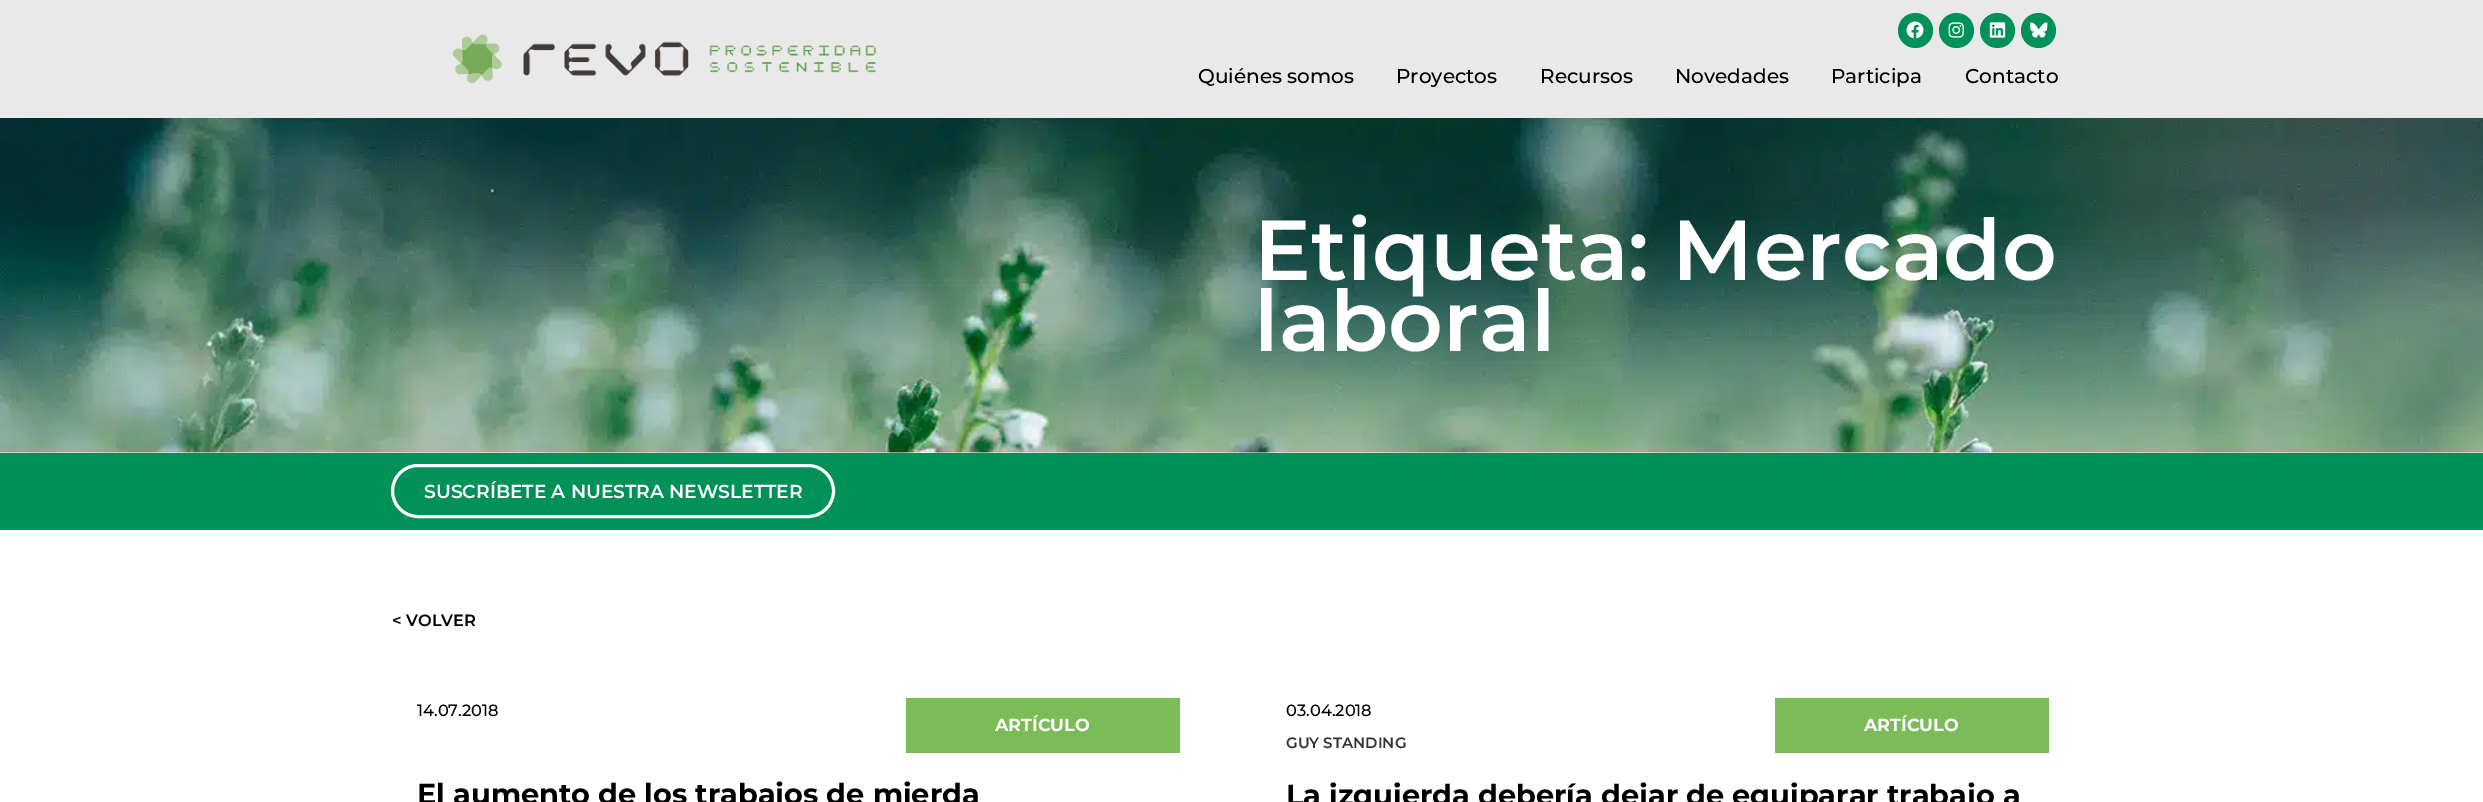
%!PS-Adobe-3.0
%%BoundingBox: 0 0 2483 802
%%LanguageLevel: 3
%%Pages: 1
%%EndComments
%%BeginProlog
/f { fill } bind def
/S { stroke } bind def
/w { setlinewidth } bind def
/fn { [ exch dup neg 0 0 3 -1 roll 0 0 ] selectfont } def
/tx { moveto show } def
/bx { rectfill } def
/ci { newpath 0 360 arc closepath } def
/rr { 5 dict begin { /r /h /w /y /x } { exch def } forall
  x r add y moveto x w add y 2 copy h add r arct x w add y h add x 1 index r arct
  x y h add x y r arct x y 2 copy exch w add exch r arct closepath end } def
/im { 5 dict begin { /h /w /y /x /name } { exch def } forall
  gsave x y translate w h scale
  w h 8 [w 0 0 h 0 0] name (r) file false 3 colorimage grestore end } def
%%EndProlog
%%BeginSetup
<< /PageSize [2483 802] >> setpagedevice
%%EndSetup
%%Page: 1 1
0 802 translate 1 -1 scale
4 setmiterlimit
1 setgray
0 0 2483 802 bx
0.914 setgray
0 0 2483 118 bx
(image0.raw) 452 34 424 50 im
0 0.569 0.349 setrgbcolor
1915.5 30.5 17.5 ci f
(image1.raw) 1906 21 18 18 im
1956.5 30.5 17.5 ci f
(image2.raw) 1948 22 16 16 im
1997.5 30.5 17.5 ci f
(image3.raw) 1989 22 17 16 im
2038.5 30.5 17.5 ci f
(image4.raw) 2030 22 18 16 im
/Montserrat-Medium 20 fn
0 setgray
(Quiénes somos) 1198 83 tx
(Proyectos) 1396 83 tx
(Recursos) 1540 83 tx
(Novedades) 1675 83 tx
(Participa) 1831 83 tx
(Contacto) 1965 83 tx
(image5.raw) 0 118 2483 335 im
/Montserrat-SemiBold 85 fn
1 setgray
(Etiqueta: Mercado) 1254 280 tx
(laboral) 1254 351 tx
0 0.569 0.349 setrgbcolor
0 453 2483 77 bx
1 setgray
3 w
392.5 465.5 441 51 25.5 rr S
/Montserrat-SemiBold 18.75 fn
(SUSCRÍBETE A NUESTRA NEWSLETTER) 424 498 tx
/Montserrat-SemiBold 16.25 fn
0 setgray
(< VOLVER) 392 626 tx
/Montserrat-Medium 16.25 fn
(14.07.2018) 417 716 tx
0.482 0.733 0.345 setrgbcolor
906 698 274 55 bx
/Montserrat-Bold 17.5 fn
1 setgray
(ARTÍCULO) 995 731 tx
/Montserrat-Bold 28.75 fn
0 setgray
(El aumento de los trabajos de mierda) 417 804 tx
/Montserrat-Medium 16.25 fn
(03.04.2018) 1286 716 tx
/Montserrat-SemiBold 15 fn
0.2 setgray
(GUY STANDING) 1286 748 tx
0.482 0.733 0.345 setrgbcolor
1775 698 274 55 bx
/Montserrat-Bold 17.5 fn
1 setgray
(ARTÍCULO) 1864 731 tx
/Montserrat-Bold 28.75 fn
0 setgray
(La izquierda debería dejar de equiparar trabajo a) 1286 805 tx
showpage
%%EOF
